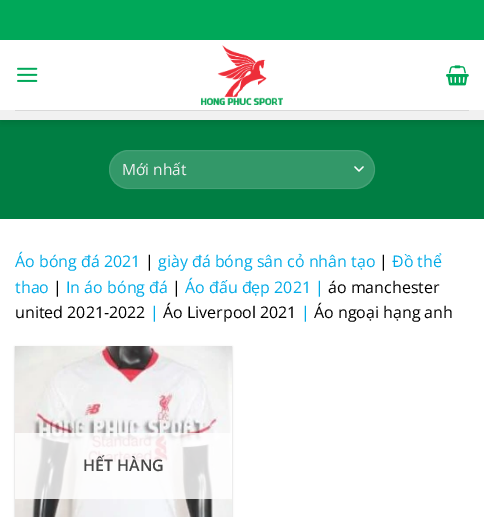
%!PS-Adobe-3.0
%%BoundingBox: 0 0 484 517
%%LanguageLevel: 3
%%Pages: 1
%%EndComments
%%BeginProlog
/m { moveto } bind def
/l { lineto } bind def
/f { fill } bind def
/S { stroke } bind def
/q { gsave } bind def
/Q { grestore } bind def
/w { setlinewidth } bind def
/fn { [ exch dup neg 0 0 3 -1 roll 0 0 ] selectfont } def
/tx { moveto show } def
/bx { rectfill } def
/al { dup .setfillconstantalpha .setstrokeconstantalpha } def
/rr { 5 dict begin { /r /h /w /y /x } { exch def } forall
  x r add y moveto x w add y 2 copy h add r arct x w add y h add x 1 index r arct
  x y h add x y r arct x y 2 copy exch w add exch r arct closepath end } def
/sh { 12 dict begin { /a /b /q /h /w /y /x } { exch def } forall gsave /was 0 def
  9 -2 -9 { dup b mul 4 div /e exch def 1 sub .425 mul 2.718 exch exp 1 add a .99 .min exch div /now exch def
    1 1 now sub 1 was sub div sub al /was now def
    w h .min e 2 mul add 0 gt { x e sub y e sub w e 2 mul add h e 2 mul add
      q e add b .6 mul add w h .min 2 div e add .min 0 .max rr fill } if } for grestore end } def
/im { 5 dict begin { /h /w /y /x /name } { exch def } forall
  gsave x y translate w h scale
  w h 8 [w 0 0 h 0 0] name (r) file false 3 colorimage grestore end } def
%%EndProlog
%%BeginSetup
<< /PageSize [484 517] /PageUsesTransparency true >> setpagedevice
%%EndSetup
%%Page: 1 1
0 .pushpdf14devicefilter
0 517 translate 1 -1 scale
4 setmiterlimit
1 setgray
0 0 484 517 bx
0 0.494 0.263 setrgbcolor
0 120 484 99 bx
q
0 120 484 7 rectclip
0 setgray
1 1 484 120 0 5 0.15 sh
Q
0 0.659 0.349 setrgbcolor
0 0 484 40 bx
(image0.raw) 17 67 21 15 im
(image1.raw) 201 45 82 60 im
(image2.raw) 446 65 23 21 im
0.945 setgray
0 110 484 10 bx
0.851 setgray
15 110 454 1 bx
0.2 0.596 0.412 setrgbcolor
109 150 266 39 19.5 rr f
1 setgray
1.3 w
1 setlinecap
1 setlinejoin
355 167 m 359 171 l 363 167 l S
0.09 al
1 w
0 setlinecap
0 setlinejoin
109.5 150.5 265 38 19 rr S
/OpenSans-Regular 15.5 fn
1 al
0.945 setgray
(Mới nhất) 122 175 tx
/OpenSans-Regular 16 fn
0 0.667 0.906 setrgbcolor
(Áo bóng đá 2021) 15 267 tx
0 setgray
(|) 145 267 tx
0 0.667 0.906 setrgbcolor
(giày đá bóng sân cỏ nhân tạo) 158 267 tx
0 setgray
(|) 379 267 tx
0 0.667 0.906 setrgbcolor
(Đồ thể) 392 267 tx
(thao) 15 293 tx
0 setgray
(|) 53 293 tx
0 0.667 0.906 setrgbcolor
(In áo bóng đá) 66 293 tx
0 setgray
(|) 172 293 tx
0 0.667 0.906 setrgbcolor
(Áo đấu đẹp 2021 |) 185 293 tx
0 setgray
(áo manchester) 328 293 tx
(united 2021-2022) 15 318 tx
0 0.667 0.906 setrgbcolor
(|) 150 318 tx
0 setgray
(Áo Liverpool 2021) 163 318 tx
0 0.667 0.906 setrgbcolor
(|) 301 318 tx
0 setgray
(Áo ngoại hạng anh) 314 318 tx
15 347 217 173 0 1 0.24 sh
(image3.raw) 15 346 217 171 im
0.81 al
1 setgray
15 433 217 66 bx
/OpenSans-SemiBold 16 fn
1 al
0.278 setgray
(HẾT HÀNG) 83 471 tx
.poppdf14devicefilter showpage
%%EOF
